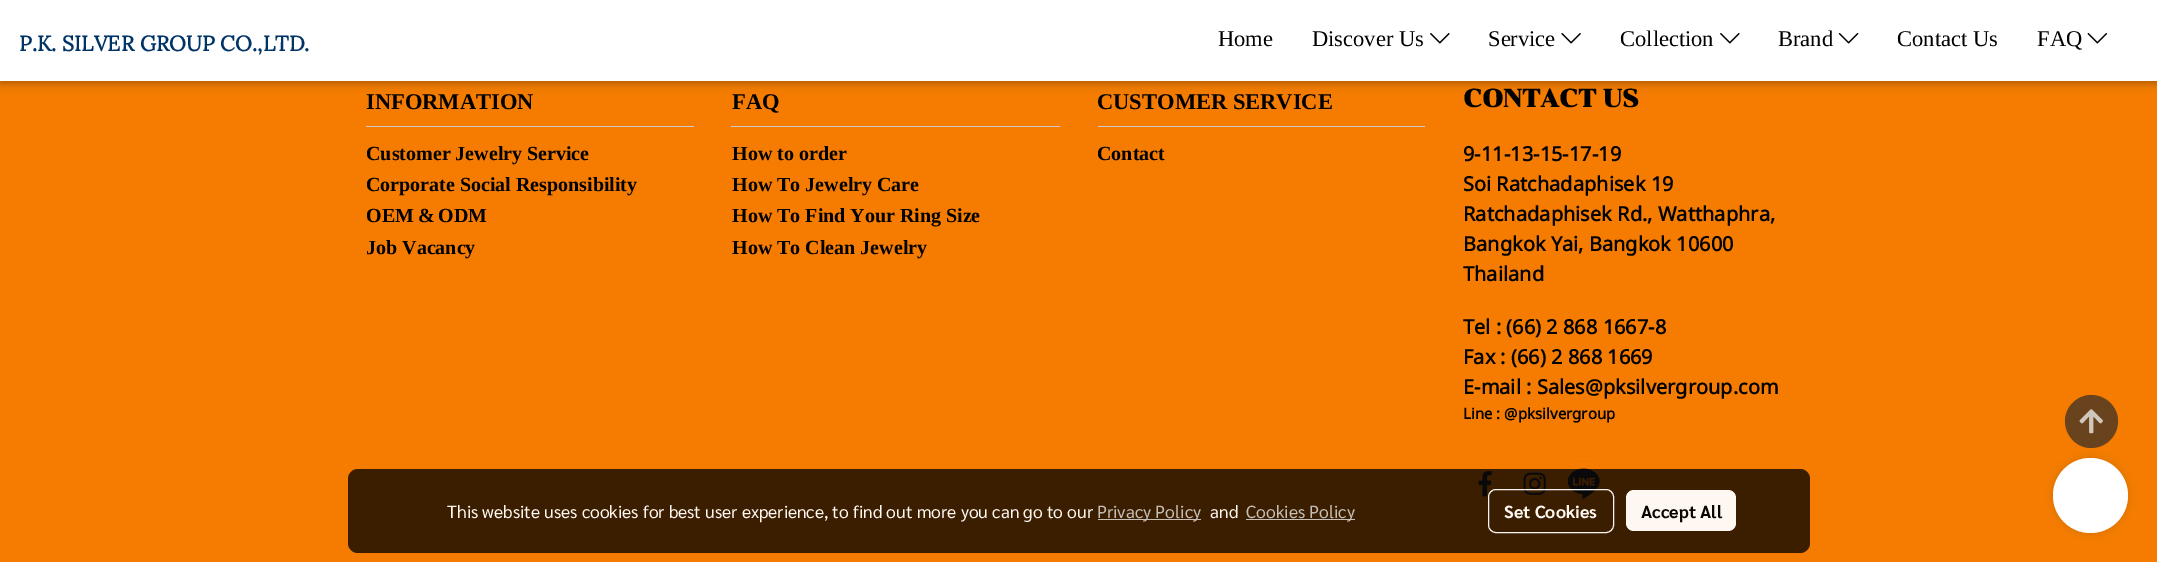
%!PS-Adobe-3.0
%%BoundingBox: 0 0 2157 562
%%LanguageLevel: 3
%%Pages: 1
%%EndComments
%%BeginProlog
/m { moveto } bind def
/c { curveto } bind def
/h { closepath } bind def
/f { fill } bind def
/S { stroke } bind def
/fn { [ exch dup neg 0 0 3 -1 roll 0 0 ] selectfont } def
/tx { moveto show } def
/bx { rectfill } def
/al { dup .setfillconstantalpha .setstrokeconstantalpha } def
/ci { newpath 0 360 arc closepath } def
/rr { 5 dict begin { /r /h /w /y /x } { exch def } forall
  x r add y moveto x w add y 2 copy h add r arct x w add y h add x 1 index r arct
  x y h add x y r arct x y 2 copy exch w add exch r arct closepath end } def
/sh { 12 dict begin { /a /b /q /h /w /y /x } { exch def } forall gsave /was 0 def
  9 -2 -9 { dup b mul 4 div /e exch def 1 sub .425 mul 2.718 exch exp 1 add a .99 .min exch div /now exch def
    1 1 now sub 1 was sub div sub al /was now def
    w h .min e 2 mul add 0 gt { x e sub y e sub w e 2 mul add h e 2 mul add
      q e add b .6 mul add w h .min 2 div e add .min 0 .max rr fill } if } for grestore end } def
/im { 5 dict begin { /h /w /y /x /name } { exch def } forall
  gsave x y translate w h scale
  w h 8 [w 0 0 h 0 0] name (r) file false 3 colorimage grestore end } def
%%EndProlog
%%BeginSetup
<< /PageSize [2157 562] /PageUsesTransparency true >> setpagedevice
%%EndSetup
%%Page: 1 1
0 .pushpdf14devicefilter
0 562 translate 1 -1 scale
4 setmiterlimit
0.961 0.486 0 setrgbcolor
0 0 2157 562 bx
0 setgray
0 3 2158 81 0 6 0.12 sh
0 3 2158 81 0 3 0.16 sh
1 setgray
0 0 2157 81 bx
/Lora-Bold 21.25 fn
0 0.2 0.4 setrgbcolor
(P.K. SILVER GROUP CO.,LTD.) 19 51 tx
/LiberationSerif-Regular 22.5 fn
0 setgray
(Home) 1218 46 tx
(Discover Us) 1312 46 tx
(image0.raw) 1430 33 20 11 im
(Service) 1488 46 tx
(image1.raw) 1561 33 20 11 im
(Collection) 1620 46 tx
(image0.raw) 1720 33 20 11 im
(Brand) 1778 46 tx
(image2.raw) 1838 33 21 11 im
(Contact Us) 1897 46 tx
(FAQ) 2037 46 tx
(image3.raw) 2087 33 21 11 im
0.8 setgray
366 126 328 1 bx
/LiberationSerif-Bold 22.5 fn
0 setgray
(INFORMATION) 366 109 tx
/LiberationSerif-Bold 20 fn
(Customer Jewelry Service) 366 160 tx
(Corporate Social Responsibility) 366 191 tx
366 222 m -1 0 32 (OEM & ODM) widthshow
(Job Vacancy) 366 254 tx
0.8 setgray
731 126 329 1 bx
/LiberationSerif-Bold 22.5 fn
0 setgray
(FAQ) 732 109 tx
/LiberationSerif-Bold 20 fn
(How to order) 732 160 tx
(How To Jewelry Care) 732 191 tx
(How To Find Your Ring Size) 732 222 tx
(How To Clean Jewelry) 732 254 tx
0.8 setgray
1098 126 327 1 bx
/LiberationSerif-Bold 22.5 fn
0 setgray
(CUSTOMER SERVICE) 1097 109 tx
/LiberationSerif-Bold 20 fn
(Contact) 1097 160 tx
/Chonburi-Bold 25 fn
(CONTACT US) 1463 107 tx
/NotoSansThai-Bold 20 fn
(9-11-13-15-17-19) 1463 161 tx
(Soi Ratchadaphisek 19) 1463 191 tx
(Ratchadaphisek Rd., Watthaphra,) 1463 221 tx
(Bangkok Yai, Bangkok 10600) 1463 251 tx
(Thailand) 1463 281 tx
(Tel : \(66\) 2 868 1667-8) 1463 334 tx
(Fax : \(66\) 2 868 1669) 1463 364 tx
(E-mail : Sales@pksilvergroup.com) 1463 394 tx
/NotoSansThai-Bold 15 fn
(Line : @pksilvergroup) 1463 419 tx
(image4.raw) 1478 471 14 26 im
(image5.raw) 1523 472 23 23 im
(image6.raw) 1567 461 39 38 im
2053 458 75 75 37.5 4.5 0.14 sh
0.408 0.263 0.114 setrgbcolor
2091 395 m 2077 395 2065 407 2065 421 c 2065 436 2077 448 2091 448 c 2106 448 2118 436 2118 421 c 2118 407 2106 395 2091 395 c h f
(image7.raw) 2079 409 24 25 im
0.76 al
0 setgray
348 469 1462 84 10 rr f
/Sarabun-Regular 17.5 fn
1 al
1 0.973 0.949 setrgbcolor
(This website uses cookies for best user experience, to find out more you can go to our) 447 518 tx
0.773 0.749 0.722 setrgbcolor
1098 519 103 1 bx
(Privacy Policy) 1097 518 tx
1 0.973 0.949 setrgbcolor
(and) 1210 518 tx
0.773 0.749 0.722 setrgbcolor
1246 519 109 1 bx
(Cookies Policy) 1246 518 tx
0.95 al
1 setgray
1488.5 489.5 125 43 7.5 rr S
/Sarabun-Bold 17.5 fn
1 al
1 0.973 0.949 setrgbcolor
(Set Cookies) 1504 518 tx
1626 490 110 41 8 rr f
0.047 0.024 0 setrgbcolor
(Accept All) 1641 518 tx
1 setgray
2090.5 495.5 37.5 ci f
.poppdf14devicefilter showpage
%%EOF
